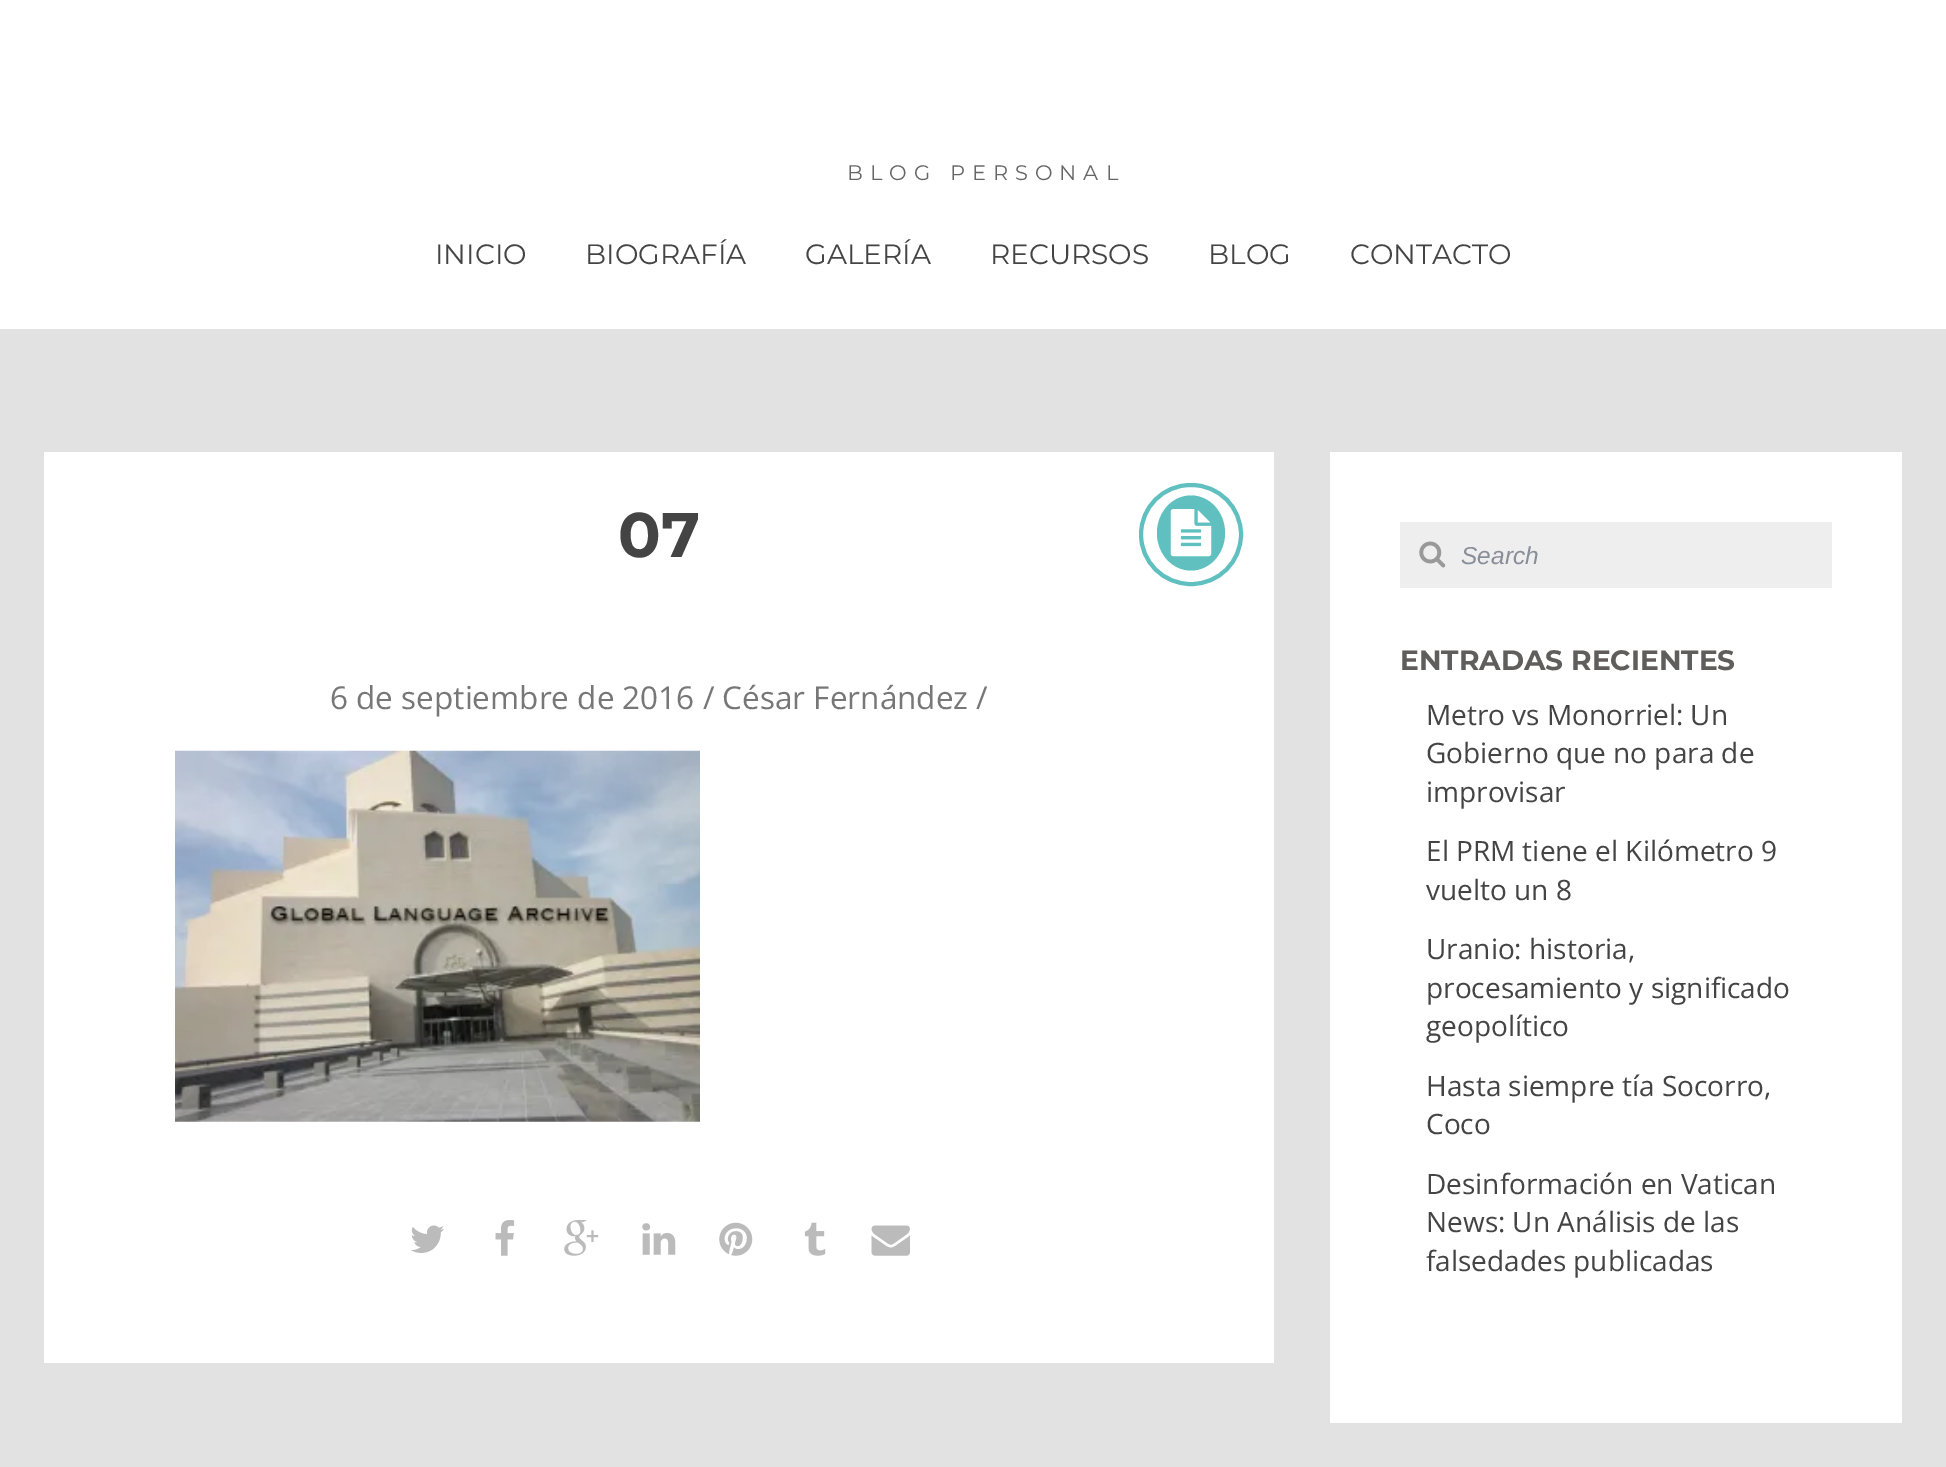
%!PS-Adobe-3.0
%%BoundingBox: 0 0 1946 1467
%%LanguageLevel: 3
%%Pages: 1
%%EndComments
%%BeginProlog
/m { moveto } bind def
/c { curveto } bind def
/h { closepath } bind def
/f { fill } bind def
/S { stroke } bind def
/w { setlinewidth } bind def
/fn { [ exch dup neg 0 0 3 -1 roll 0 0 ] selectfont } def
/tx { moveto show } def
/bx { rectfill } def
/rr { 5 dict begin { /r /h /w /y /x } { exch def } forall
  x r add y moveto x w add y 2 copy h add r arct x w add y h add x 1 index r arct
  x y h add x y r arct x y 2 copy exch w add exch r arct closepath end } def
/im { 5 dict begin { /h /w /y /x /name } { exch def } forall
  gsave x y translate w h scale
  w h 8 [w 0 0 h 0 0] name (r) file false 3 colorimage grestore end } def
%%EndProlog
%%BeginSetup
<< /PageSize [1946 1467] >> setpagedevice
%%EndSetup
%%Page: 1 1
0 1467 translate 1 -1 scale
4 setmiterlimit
0.886 setgray
0 0 1946 1467 bx
1 setgray
0 0 1946 329 bx
/Montserrat-Regular 21 fn
0.4 setgray
847 180 m 7 0 (BLOG PERSONAL) ashow
/Montserrat-Regular 28 fn
0.267 setgray
(INICIO) 435 264 tx
(BIOGRAFÍA) 585 264 tx
(GALERÍA) 805 264 tx
(RECURSOS) 990 264 tx
(BLOG) 1208 264 tx
(CONTACTO) 1350 264 tx
1 setgray
44 452 1230 911 bx
/Montserrat-Bold 63 fn
0.267 setgray
(07) 618 557 tx
0.376 0.753 0.753 setrgbcolor
4 w
1141 485 100 99 49.5 rr S
1191 495.5 m 1210 495.5 1225 512.5 1225 533 c 1225 553.5 1210 570.5 1191 570.5 c 1172 570.5 1157 553.5 1157 533 c 1157 512.5 1172 495.5 1191 495.5 c h f
(image0.raw) 1170 509 42 48 im
/OpenSans-Regular 31.5 fn
0.467 setgray
(6 de septiembre de 2016 / César Fernández /) 330 709 tx
(image1.raw) 175 750 525 372 im
(image2.raw) 411 1225 33 28 im
(image3.raw) 495 1220 20 36 im
(image4.raw) 564 1220 35 36 im
(image5.raw) 642 1223 34 32 im
(image6.raw) 719 1222 34 34 im
(image7.raw) 804 1222 22 34 im
(image8.raw) 871 1225 39 31 im
1 setgray
1330 452 572 971 bx
0.933 setgray
1400 522 432 66 bx
(image9.raw) 1419 541 27 27 im
/LiberationSans-Italic 24.5 fn
0.537 0.557 0.6 setrgbcolor
(Search) 1461 564 tx
/Montserrat-Bold 28 fn
0.373 0.369 0.361 setrgbcolor
(ENTRADAS RECIENTES) 1400 670 tx
/OpenSans-Regular 28 fn
0.267 setgray
(Metro vs Monorriel: Un) 1426 725 tx
(Gobierno que no para de) 1426 763 tx
(improvisar) 1426 802 tx
(El PRM tiene el Kilómetro 9) 1426 861 tx
(vuelto un 8) 1426 900 tx
(Uranio: historia,) 1426 959 tx
(procesamiento y significado) 1426 998 tx
(geopolítico) 1426 1036 tx
(Hasta siempre tía Socorro,) 1426 1096 tx
(Coco) 1426 1134 tx
(Desinformación en Vatican) 1426 1194 tx
(News: Un Análisis de las) 1426 1232 tx
(falsedades publicadas) 1426 1271 tx
showpage
%%EOF
